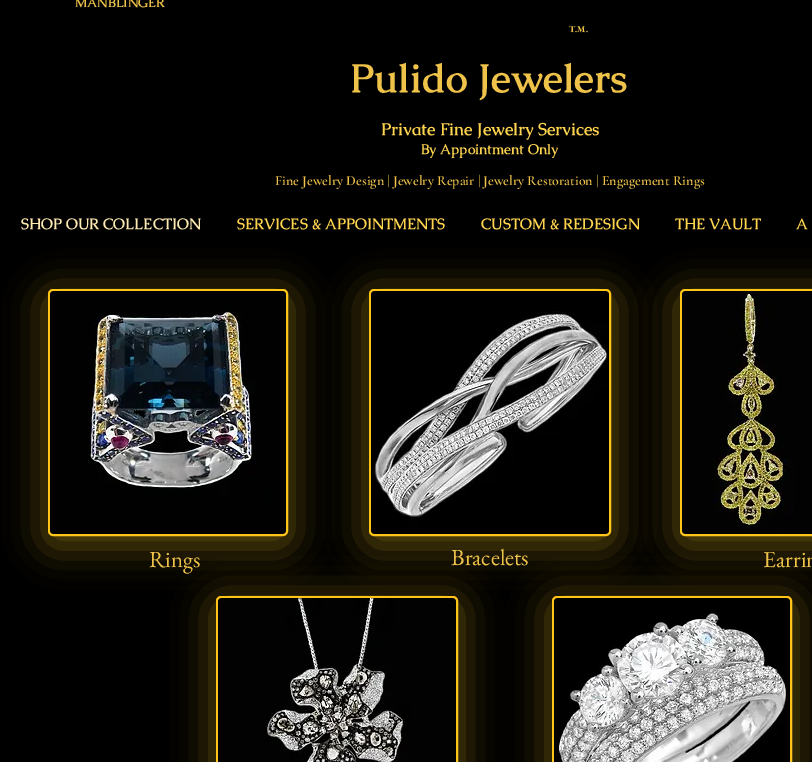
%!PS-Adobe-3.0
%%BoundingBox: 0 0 812 762
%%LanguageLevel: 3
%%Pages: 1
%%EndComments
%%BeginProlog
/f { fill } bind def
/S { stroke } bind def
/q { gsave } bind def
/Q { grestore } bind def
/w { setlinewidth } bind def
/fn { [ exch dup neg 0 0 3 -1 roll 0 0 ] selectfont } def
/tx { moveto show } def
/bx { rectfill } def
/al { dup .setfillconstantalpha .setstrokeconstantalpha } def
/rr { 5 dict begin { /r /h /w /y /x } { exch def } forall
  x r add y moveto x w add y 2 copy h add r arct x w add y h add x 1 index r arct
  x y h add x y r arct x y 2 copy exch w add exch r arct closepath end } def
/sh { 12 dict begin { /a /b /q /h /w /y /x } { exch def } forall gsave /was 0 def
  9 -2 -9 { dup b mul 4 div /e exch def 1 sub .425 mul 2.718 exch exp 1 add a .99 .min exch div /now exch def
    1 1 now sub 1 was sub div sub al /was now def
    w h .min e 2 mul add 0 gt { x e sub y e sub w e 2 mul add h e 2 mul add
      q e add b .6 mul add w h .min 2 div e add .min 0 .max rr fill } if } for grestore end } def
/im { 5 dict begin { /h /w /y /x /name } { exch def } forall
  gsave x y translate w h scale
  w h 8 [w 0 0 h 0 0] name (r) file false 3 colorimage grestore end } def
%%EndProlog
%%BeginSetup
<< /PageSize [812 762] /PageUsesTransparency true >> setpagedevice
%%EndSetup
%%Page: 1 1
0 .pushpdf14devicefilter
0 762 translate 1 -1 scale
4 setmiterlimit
0 setgray
0 0 812 762 bx
/Caudex-Bold 13 fn
0.937 0.765 0.29 setrgbcolor
(MANBLINGER) 75 7 tx
/EBGaramond-Bold 9 fn
(T.M.) 569 32 tx
/Caudex-Bold 40 fn
(Pulido Jewelers) 350 92 tx
/Caudex-Bold 17 fn
1 0.835 0.31 setrgbcolor
(Private Fine Jewelry Services) 381 135 tx
/Caudex-Bold 14 fn
(By Appointment Only) 421 154 tx
/CormorantGaramond-SemiBold 14 fn
0.937 0.765 0.29 setrgbcolor
(Fine Jewelry Design | Jewelry Repair | Jewelry Restoration | Engagement Rings) 275 185 tx
/Caudex-Bold 15 fn
1 0.922 0.698 setrgbcolor
(SHOP OUR COLLECTION) 21 229 tx
1 0.835 0.31 setrgbcolor
(SERVICES & APPOINTMENTS) 237 229 tx
(CUSTOM & REDESIGN) 481 229 tx
(THE VAULT) 675 229 tx
(A) 796 229 tx
0.745 0.62 0.098 setrgbcolor
45 293 246 253 8 19.5 0.5 sh
1 0.773 0.098 setrgbcolor
49 290 238 245 4 rr q f Q
2 w
S
(image0.raw) 50 291 236 243 im
0.745 0.62 0.098 setrgbcolor
366 293 248 253 8 19.5 0.5 sh
1 0.773 0.098 setrgbcolor
370 290 240 245 4 rr q f Q
S
(image1.raw) 371 291 238 243 im
0.745 0.62 0.098 setrgbcolor
677 293 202 253 8 19.5 0.5 sh
1 0.773 0.098 setrgbcolor
681 290 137 245 4 rr q f Q
S
(image2.raw) 682 291 130 243 im
0.745 0.62 0.098 setrgbcolor
213 600 248 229 8 19.5 0.5 sh
1 0.773 0.098 setrgbcolor
217 597 240 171 4 rr q f Q
S
(image3.raw) 218 598 238 164 im
0.745 0.62 0.098 setrgbcolor
549 600 246 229 8 19.5 0.5 sh
1 0.773 0.098 setrgbcolor
553 597 238 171 4 rr q f Q
S
(image4.raw) 554 598 236 164 im
/EBGaramond-Regular 23 fn
0.937 0.765 0.29 setrgbcolor
(Rings) 149 567 tx
(Bracelets) 451 565 tx
(Earrin) 763 567 tx
.poppdf14devicefilter showpage
%%EOF
